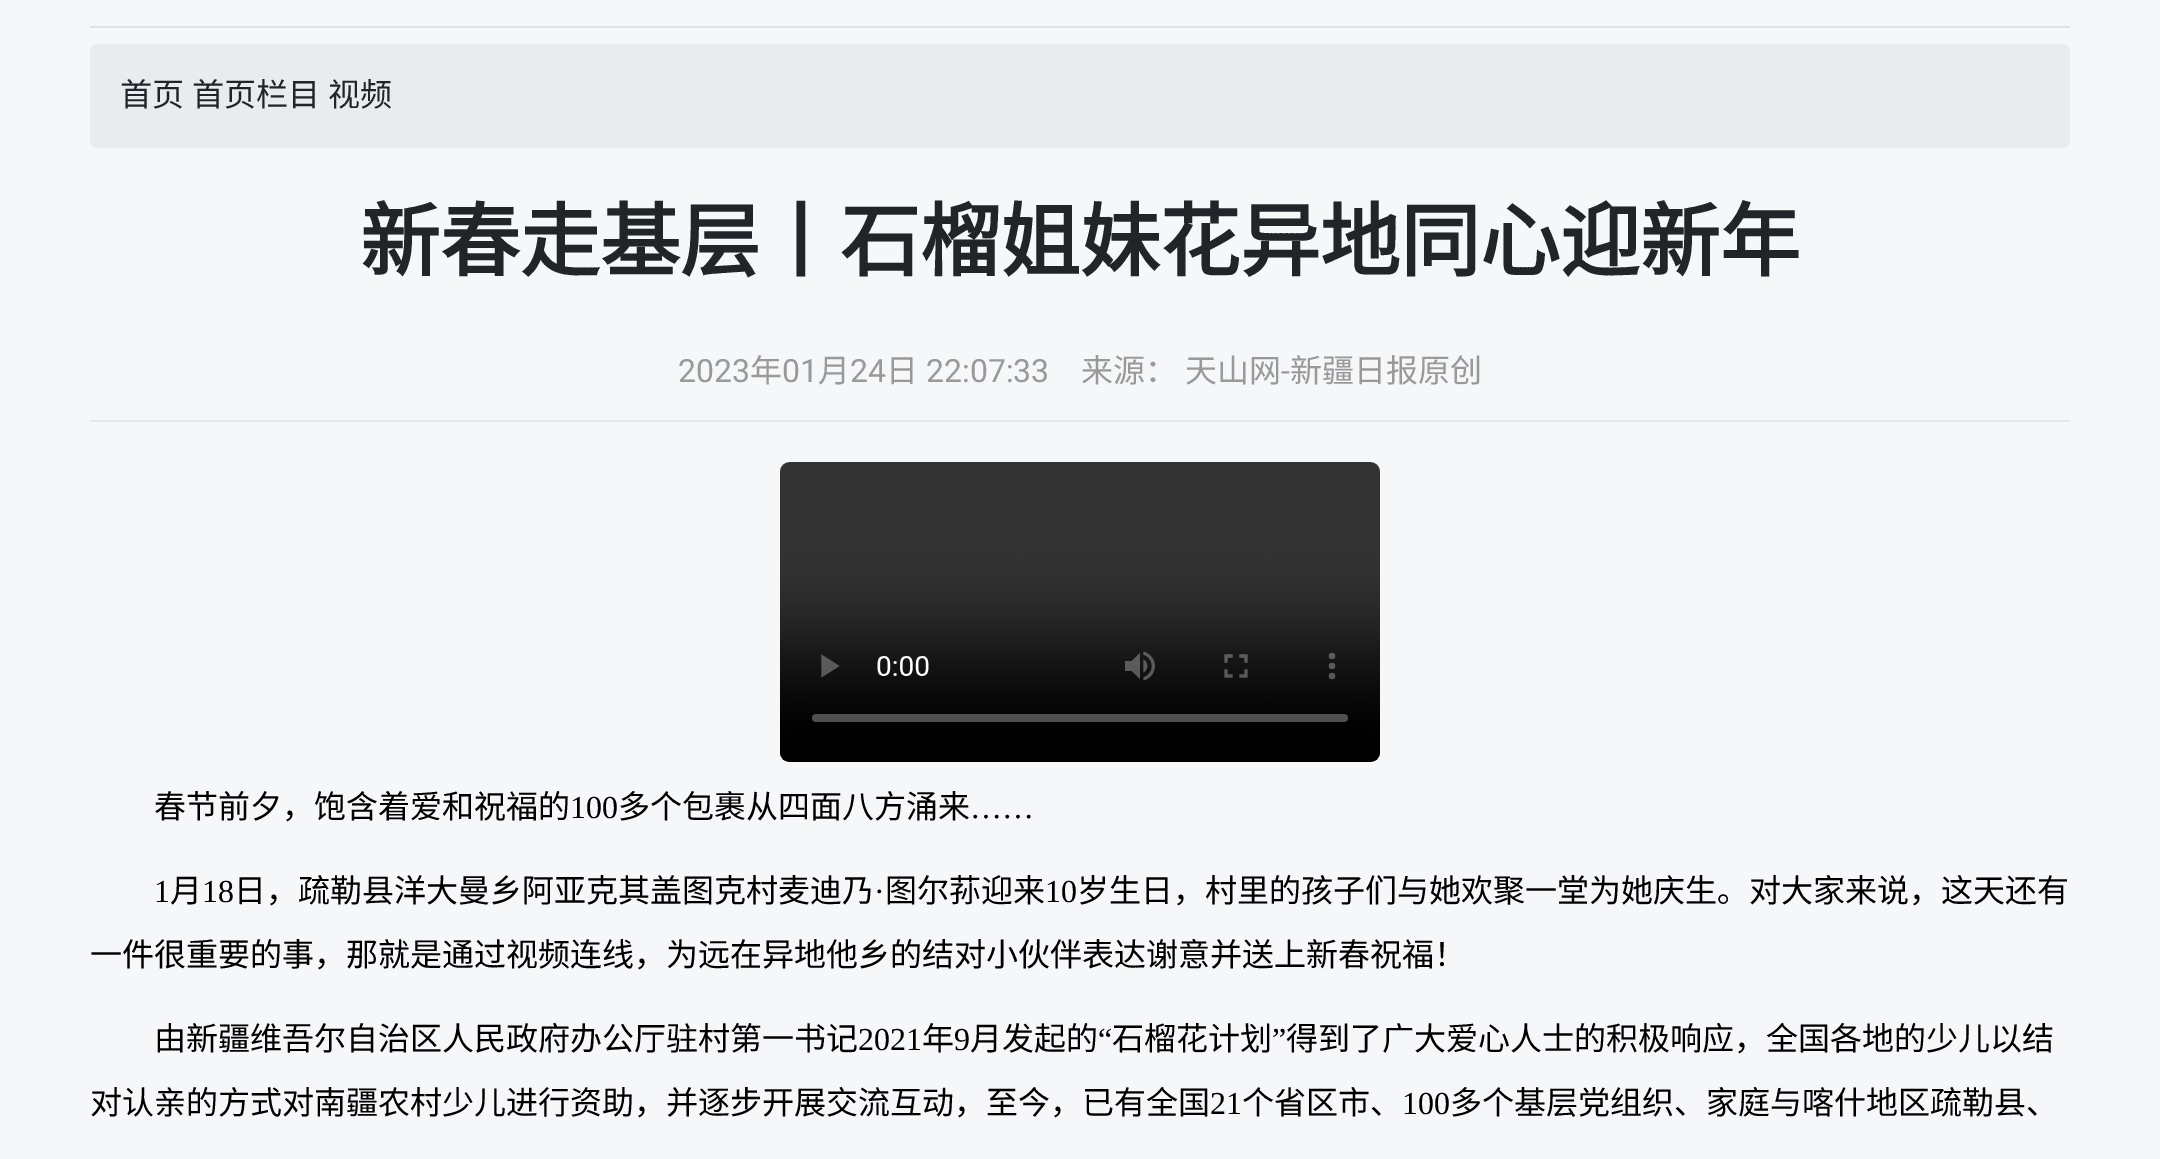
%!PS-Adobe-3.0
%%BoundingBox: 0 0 2160 1159
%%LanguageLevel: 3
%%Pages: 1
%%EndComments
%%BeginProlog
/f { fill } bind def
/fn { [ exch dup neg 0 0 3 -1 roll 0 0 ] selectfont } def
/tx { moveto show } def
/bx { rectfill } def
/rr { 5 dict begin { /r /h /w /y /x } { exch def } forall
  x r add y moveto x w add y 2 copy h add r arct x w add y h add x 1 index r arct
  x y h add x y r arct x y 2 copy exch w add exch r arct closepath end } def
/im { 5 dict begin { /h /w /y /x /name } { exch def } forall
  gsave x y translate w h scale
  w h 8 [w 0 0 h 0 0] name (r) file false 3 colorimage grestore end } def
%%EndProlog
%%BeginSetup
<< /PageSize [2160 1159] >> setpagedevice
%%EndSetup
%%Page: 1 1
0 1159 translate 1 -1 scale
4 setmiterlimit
0.961 0.969 0.976 setrgbcolor
0 0 2160 1159 bx
0.871 0.886 0.902 setrgbcolor
90 26 1980 2 bx
0.914 0.925 0.937 setrgbcolor
90 44 1980 104 8 rr f
/NotoSansCJKSC-Regular 32 fn
0.129 0.145 0.161 setrgbcolor
(首页) 120 106 tx
(首页栏目) 192 106 tx
(视频) 328 106 tx
/NotoSansCJKSC-Bold 80 fn
(新春走基层丨石榴姐妹花异地同心迎新年) 360 270 tx
0.91 setgray
90 420 1980 2 bx
/Roboto-Regular 32 fn
0.6 setgray
(2023) 678 382 tx
/NotoSansCJKSC-Regular 32 fn
(年) 750 382 tx
/Roboto-Regular 32 fn
(01) 782 382 tx
/NotoSansCJKSC-Regular 32 fn
(月) 818 382 tx
/Roboto-Regular 32 fn
(24) 850 382 tx
/NotoSansCJKSC-Regular 32 fn
(日) 886 382 tx
/Roboto-Regular 32 fn
(22:07:33) 926 382 tx
/NotoSansCJKSC-Regular 32 fn
(来源：) 1081 382 tx
(天山网) 1185 382 tx
/Roboto-Regular 32 fn
(-) 1281 382 tx
/NotoSansCJKSC-Regular 32 fn
(新疆日报原创) 1290 382 tx
(image0.raw) 780 462 600 300 im
0 setgray
(春节前夕，饱含着爱和祝福的) 154 818 tx
/LiberationSerif-Regular 32 fn
(100) 570 818 tx
/NotoSansCJKSC-Regular 32 fn
(多个包裹从四面八方涌来) 618 818 tx
/LiberationSerif-Regular 32 fn
(……) 970 818 tx
(1) 154 902 tx
/NotoSansCJKSC-Regular 32 fn
(月) 170 902 tx
/LiberationSerif-Regular 32 fn
(18) 202 902 tx
/NotoSansCJKSC-Regular 32 fn
(日，疏勒县洋大曼乡阿亚克其盖图克村麦迪乃) 234 902 tx
/LiberationSerif-Regular 32 fn
(·) 874 902 tx
/NotoSansCJKSC-Regular 32 fn
(图尔荪迎来) 885 902 tx
/LiberationSerif-Regular 32 fn
(10) 1045 902 tx
/NotoSansCJKSC-Regular 32 fn
(岁生日，村里的孩子们与她欢聚一堂为她庆生。对大家来说，这天还有) 1077 902 tx
(一件很重要的事，那就是通过视频连线，为远在异地他乡的结对小伙伴表达谢意并送上新春祝福！) 90 966 tx
(由新疆维吾尔自治区人民政府办公厅驻村第一书记) 154 1050 tx
/LiberationSerif-Regular 32 fn
(2021) 858 1050 tx
/NotoSansCJKSC-Regular 32 fn
(年) 922 1050 tx
/LiberationSerif-Regular 32 fn
(9) 954 1050 tx
/NotoSansCJKSC-Regular 32 fn
(月发起的) 970 1050 tx
/LiberationSerif-Regular 32 fn
(“) 1098 1050 tx
/NotoSansCJKSC-Regular 32 fn
(石榴花计划) 1112 1050 tx
/LiberationSerif-Regular 32 fn
(”) 1272 1050 tx
/NotoSansCJKSC-Regular 32 fn
(得到了广大爱心人士的积极响应，全国各地的少儿以结) 1286 1050 tx
(对认亲的方式对南疆农村少儿进行资助，并逐步开展交流互动，至今，已有全国) 90 1114 tx
/LiberationSerif-Regular 32 fn
(21) 1210 1114 tx
/NotoSansCJKSC-Regular 32 fn
(个省区市、) 1242 1114 tx
/LiberationSerif-Regular 32 fn
(100) 1402 1114 tx
/NotoSansCJKSC-Regular 32 fn
(多个基层党组织、家庭与喀什地区疏勒县、) 1450 1114 tx
showpage
%%EOF
